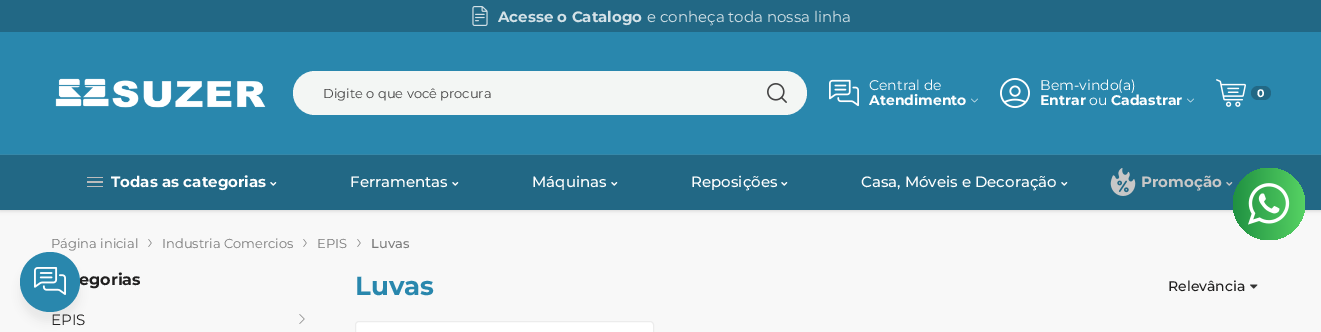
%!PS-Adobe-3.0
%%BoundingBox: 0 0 1321 332
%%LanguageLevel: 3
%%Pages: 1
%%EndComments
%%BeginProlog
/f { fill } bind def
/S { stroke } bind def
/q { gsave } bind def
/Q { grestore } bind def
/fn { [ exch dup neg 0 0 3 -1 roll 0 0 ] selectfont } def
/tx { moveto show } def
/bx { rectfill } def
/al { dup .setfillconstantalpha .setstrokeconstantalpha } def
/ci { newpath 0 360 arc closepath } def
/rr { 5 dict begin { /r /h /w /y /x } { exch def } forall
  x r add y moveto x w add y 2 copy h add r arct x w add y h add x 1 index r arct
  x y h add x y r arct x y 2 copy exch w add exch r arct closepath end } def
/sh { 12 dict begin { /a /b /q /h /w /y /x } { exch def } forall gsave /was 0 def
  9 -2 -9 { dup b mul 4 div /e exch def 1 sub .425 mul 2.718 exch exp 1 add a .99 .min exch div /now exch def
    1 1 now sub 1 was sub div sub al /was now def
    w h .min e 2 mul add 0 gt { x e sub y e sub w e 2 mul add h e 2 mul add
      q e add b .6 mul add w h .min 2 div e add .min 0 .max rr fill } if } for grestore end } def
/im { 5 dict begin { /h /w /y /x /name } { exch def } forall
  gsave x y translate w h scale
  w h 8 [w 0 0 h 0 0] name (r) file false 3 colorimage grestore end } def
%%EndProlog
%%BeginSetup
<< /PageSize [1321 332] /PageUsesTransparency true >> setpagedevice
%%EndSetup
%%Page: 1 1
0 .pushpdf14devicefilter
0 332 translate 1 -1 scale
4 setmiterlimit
0.973 setgray
0 0 1321 332 bx
0.133 0.408 0.522 setrgbcolor
0 0 1321 32 bx
(image0.raw) 472 6 16 20 im
/Montserrat-Bold 15 fn
0.827 0.882 0.906 setrgbcolor
(Acesse o Catalogo) 498 22 tx
/Montserrat-Regular 15 fn
(e conheça toda nossa linha) 647 22 tx
0.322 setgray
0 156 1321 55 0 2 0.2 sh
0.161 0.529 0.678 setrgbcolor
0 32 1321 122 bx
0.212 0.533 0.663 setrgbcolor
0 154 1321 1 bx
(image1.raw) 55 78 211 30 im
0.953 0.965 0.957 setrgbcolor
293 71 514 44 22 rr f
/Montserrat-Regular 13 fn
0.267 setgray
(Digite o que você procura) 323 98 tx
(image2.raw) 767 83 20 20 im
(image3.raw) 829 79 30 28 im
/Montserrat-Regular 14 fn
1 setgray
(Central de) 869 90 tx
/Montserrat-Bold 14 fn
(Atendimento) 869 105 tx
(image4.raw) 971 98 7 5 im
(image5.raw) 1000 78 30 30 im
/Montserrat-Regular 14 fn
(Bem-vindo\(a\)) 1040 90 tx
/Montserrat-Bold 14 fn
(Entrar) 1040 105 tx
/Montserrat-Regular 14 fn
(ou) 1089 105 tx
/Montserrat-Bold 14 fn
(Cadastrar) 1111 105 tx
(image4.raw) 1187 98 7 5 im
(image6.raw) 1216 79 30 28 im
0.133 0.408 0.522 setrgbcolor
1251 86 20 14 7 rr f
/Montserrat-Bold 11 fn
1 setgray
(0) 1257 97 tx
0.133 0.408 0.522 setrgbcolor
0 155 1321 55 bx
0.737 setgray
87 186 16 1 bx
87 181 16 2 bx
87 177 16 1 bx
/Montserrat-Bold 15 fn
1 setgray
(Todas as categorias) 111 187 tx
(image7.raw) 270 182 7 4 im
/Montserrat-Medium 15 fn
(Ferramentas) 350 187 tx
(image7.raw) 452 182 7 4 im
(Máquinas) 532 187 tx
(image7.raw) 611 182 7 4 im
(Reposições) 691 187 tx
(image7.raw) 781 182 7 4 im
(Casa, Móveis e Decoração) 861 187 tx
(image7.raw) 1061 182 7 4 im
(image8.raw) 1110 168 26 28 im
/Montserrat-Bold 15 fn
0.78 setgray
(Promoção) 1141 187 tx
(image9.raw) 1226 182 7 4 im
/Montserrat-Regular 13 fn
0.482 setgray
(Página inicial) 51 248 tx
(image10.raw) 148 239 4 8 im
(Industria Comercios) 162 248 tx
(image10.raw) 303 239 4 8 im
(EPIS) 317 248 tx
(image10.raw) 357 239 4 8 im
/Montserrat-Medium 13 fn
(Luvas) 371 248 tx
/Montserrat-Bold 16 fn
0.125 0.122 0.122 setrgbcolor
(egorias) 79 285 tx
/Montserrat-Regular 15 fn
(EPIS) 51 325 tx
(image11.raw) 299 314 6 10 im
/Montserrat-Bold 26 fn
0.161 0.529 0.678 setrgbcolor
(Luvas) 355 295 tx
/Montserrat-Medium 14 fn
0.125 0.122 0.122 setrgbcolor
(Relevância) 1168 291 tx
(image12.raw) 1250 284 8 5 im
1 setgray
355.5 321.5 298 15 3.5 rr q f Q
0.925 setgray
S
q 1269 204 36 ci clip newpath
<< /ShadingType 2 /ColorSpace /DeviceRGB /Coords [1233 204 1305 204] /Extend [true true] /Function << /FunctionType 2 /Domain [0 1] /C0 [0.125 0.569 0.259] /C1 [0.337 0.824 0.388] /N 1 >> >> shfill Q
(image13.raw) 1248 183 42 42 im
0.404 setgray
20 262 60 60 30 4 0.1 sh
0.161 0.529 0.678 setrgbcolor
50 282 30 ci f
(image14.raw) 34 267 32 28 im
.poppdf14devicefilter showpage
%%EOF
